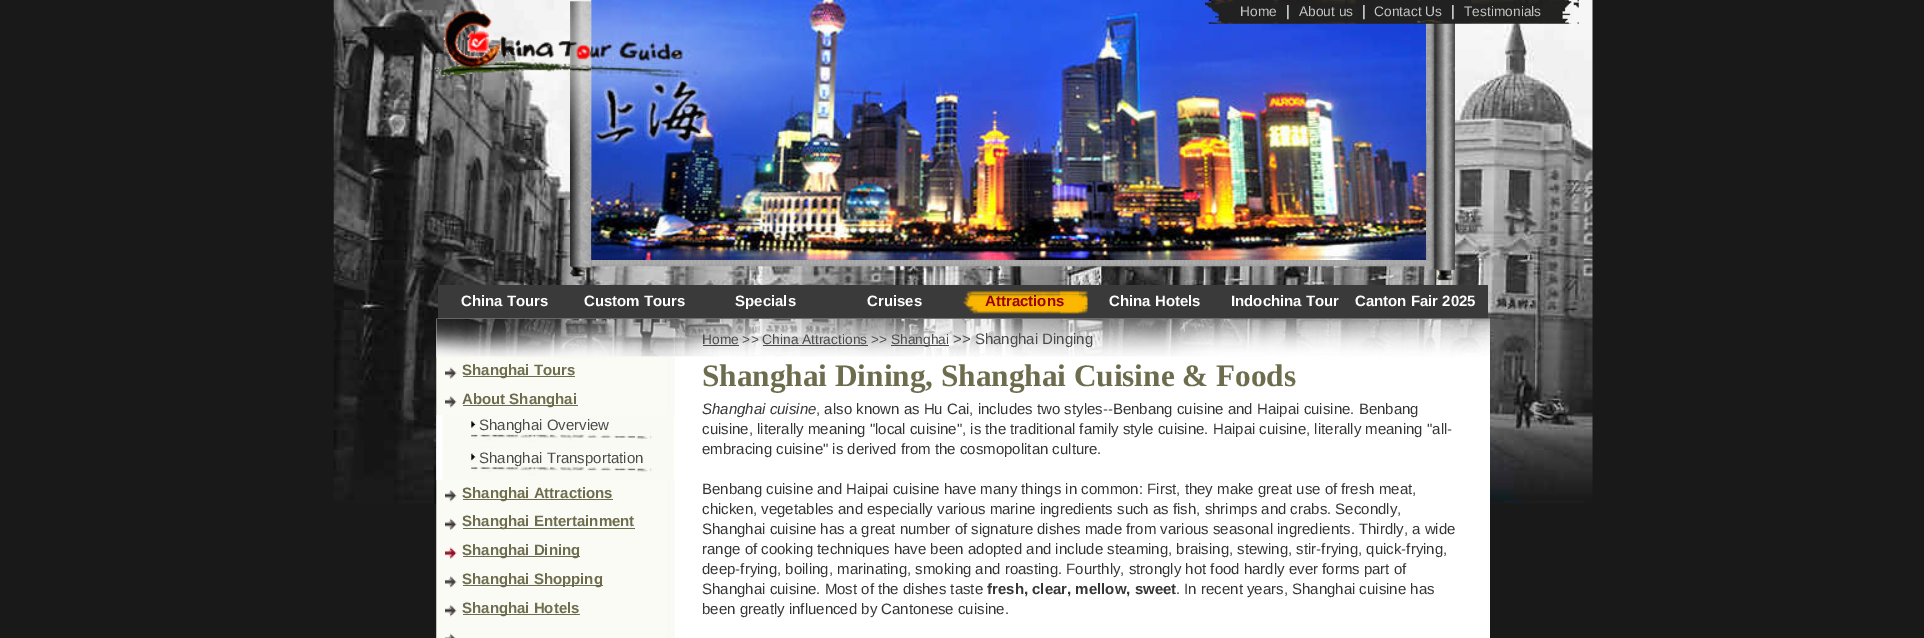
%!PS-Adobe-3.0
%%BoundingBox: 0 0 1924 638
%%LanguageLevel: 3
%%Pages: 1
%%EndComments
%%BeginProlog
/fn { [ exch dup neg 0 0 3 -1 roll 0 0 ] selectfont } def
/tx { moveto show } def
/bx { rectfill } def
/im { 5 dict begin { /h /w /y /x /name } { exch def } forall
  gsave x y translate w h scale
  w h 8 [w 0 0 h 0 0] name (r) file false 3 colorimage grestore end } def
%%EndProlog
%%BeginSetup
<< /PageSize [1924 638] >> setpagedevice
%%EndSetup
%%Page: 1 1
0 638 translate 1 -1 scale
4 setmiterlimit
0.098 setgray
0 0 1924 638 bx
(image0.raw) 333 0 1260 504 im
(image1.raw) 570 1 22 276 im
(image3.raw) 591 258 836 9 im
(image2.raw) 591 0 836 260 im
(image4.raw) 435 11 135 66 im
(image6.raw) 1426 23 29 258 im
(image5.raw) 1204 0 375 24 im
/LiberationSans-Regular 13.75 fn
0.773 0.769 0.769 setrgbcolor
(Home) 1240 16 tx
/LiberationSans-Regular 15 fn
1 setgray
(|) 1286 16 tx
/LiberationSans-Regular 13.75 fn
0.773 0.769 0.769 setrgbcolor
(About us) 1299 16 tx
/LiberationSans-Regular 15 fn
1 setgray
(|) 1362 16 tx
/LiberationSans-Regular 13.75 fn
0.773 0.769 0.769 setrgbcolor
(Contact Us) 1374 16 tx
/LiberationSans-Regular 15 fn
1 setgray
(|) 1451 16 tx
/LiberationSans-Regular 13.75 fn
0.773 0.769 0.769 setrgbcolor
(Testimonials) 1464 16 tx
0.227 setgray
438 285 1050 34 bx
/LiberationSans-Bold 15 fn
1 setgray
(China Tours) 461 306 tx
(Custom Tours) 584 306 tx
(Specials) 735 306 tx
(Cruises) 867 306 tx
(image7.raw) 962 290 126 24 im
0.6 0 0 setrgbcolor
(Attractions) 985 306 tx
1 setgray
(China Hotels) 1109 306 tx
(Indochina Tour) 1231 306 tx
(Canton Fair 2025) 1355 306 tx
(image8.raw) 436 318 1054 320 im
(image9.raw) 436 318 239 40 im
(image10.raw) 445 367 12 12 im
0.427 0.427 0.306 setrgbcolor
463 376 112 1 bx
(Shanghai Tours) 462 375 tx
(image11.raw) 445 396 12 12 im
463 405 115 1 bx
(About Shanghai) 462 404 tx
(image12.raw) 436 415 239 33 im
/LiberationSans-Regular 15 fn
0.298 0.294 0.294 setrgbcolor
(Shanghai Overview) 479 430 tx
(image13.raw) 436 447 239 33 im
(Shanghai Transportation) 479 463 tx
(image14.raw) 445 490 12 12 im
0.427 0.427 0.306 setrgbcolor
463 499 150 1 bx
/LiberationSans-Bold 15 fn
(Shanghai Attractions) 462 498 tx
(image15.raw) 445 518 12 12 im
463 528 172 1 bx
(Shanghai Entertainment) 462 526 tx
(image16.raw) 445 547 12 12 im
463 556 117 1 bx
(Shanghai Dining) 462 555 tx
(image11.raw) 445 576 12 12 im
463 585 140 1 bx
(Shanghai Shopping) 462 584 tx
(image14.raw) 445 605 12 12 im
463 614 117 1 bx
(Shanghai Hotels) 462 613 tx
(image17.raw) 445 633 11 5 im
1 setgray
675 357 1 281 bx
(image18.raw) 675 318 815 39 im
/LiberationSans-Regular 13.75 fn
0.298 0.294 0.294 setrgbcolor
(Home >> China Attractions >>) 702 344 tx
703 345 36 1 bx
763 345 105 1 bx
891 345 58 1 bx
(Shanghai) 891 344 tx
/LiberationSans-Regular 15 fn
(>> Shanghai Dinging) 953 344 tx
/LiberationSerif-Bold 31.25 fn
0.427 0.427 0.306 setrgbcolor
(Shanghai Dining, Shanghai Cuisine & Foods) 702 386 tx
/LiberationSans-Italic 15 fn
0.216 0.212 0.212 setrgbcolor
(Shanghai cuisine) 702 414 tx
/LiberationSans-Regular 15 fn
(, also known as Hu Cai, includes two styles--Benbang cuisine and Haipai cuisine. Benbang) 816 414 tx
(cuisine, literally meaning "local cuisine", is the traditional family style cuisine. Haipai cuisine, literally meaning "all-) 702 434 tx
(embracing cuisine" is derived from the cosmopolitan culture.) 702 454 tx
(Benbang cuisine and Haipai cuisine have many things in common: First, they make great use of fresh meat,) 702 494 tx
(chicken, vegetables and especially various marine ingredients such as fish, shrimps and crabs. Secondly,) 702 514 tx
(Shanghai cuisine has a great number of signature dishes made from various seasonal ingredients. Thirdly, a wide) 702 534 tx
(range of cooking techniques have been adopted and include steaming, braising, stewing, stir-frying, quick-frying,) 702 554 tx
(deep-frying, boiling, marinating, smoking and roasting. Fourthly, strongly hot food hardly ever forms part of) 702 574 tx
(Shanghai cuisine. Most of the dishes taste) 702 594 tx
/LiberationSans-Bold 15 fn
(fresh, clear, mellow, sweet) 987 594 tx
/LiberationSans-Regular 15 fn
(. In recent years, Shanghai cuisine has) 1176 594 tx
(been greatly influenced by Cantonese cuisine.) 702 614 tx
showpage
%%EOF
